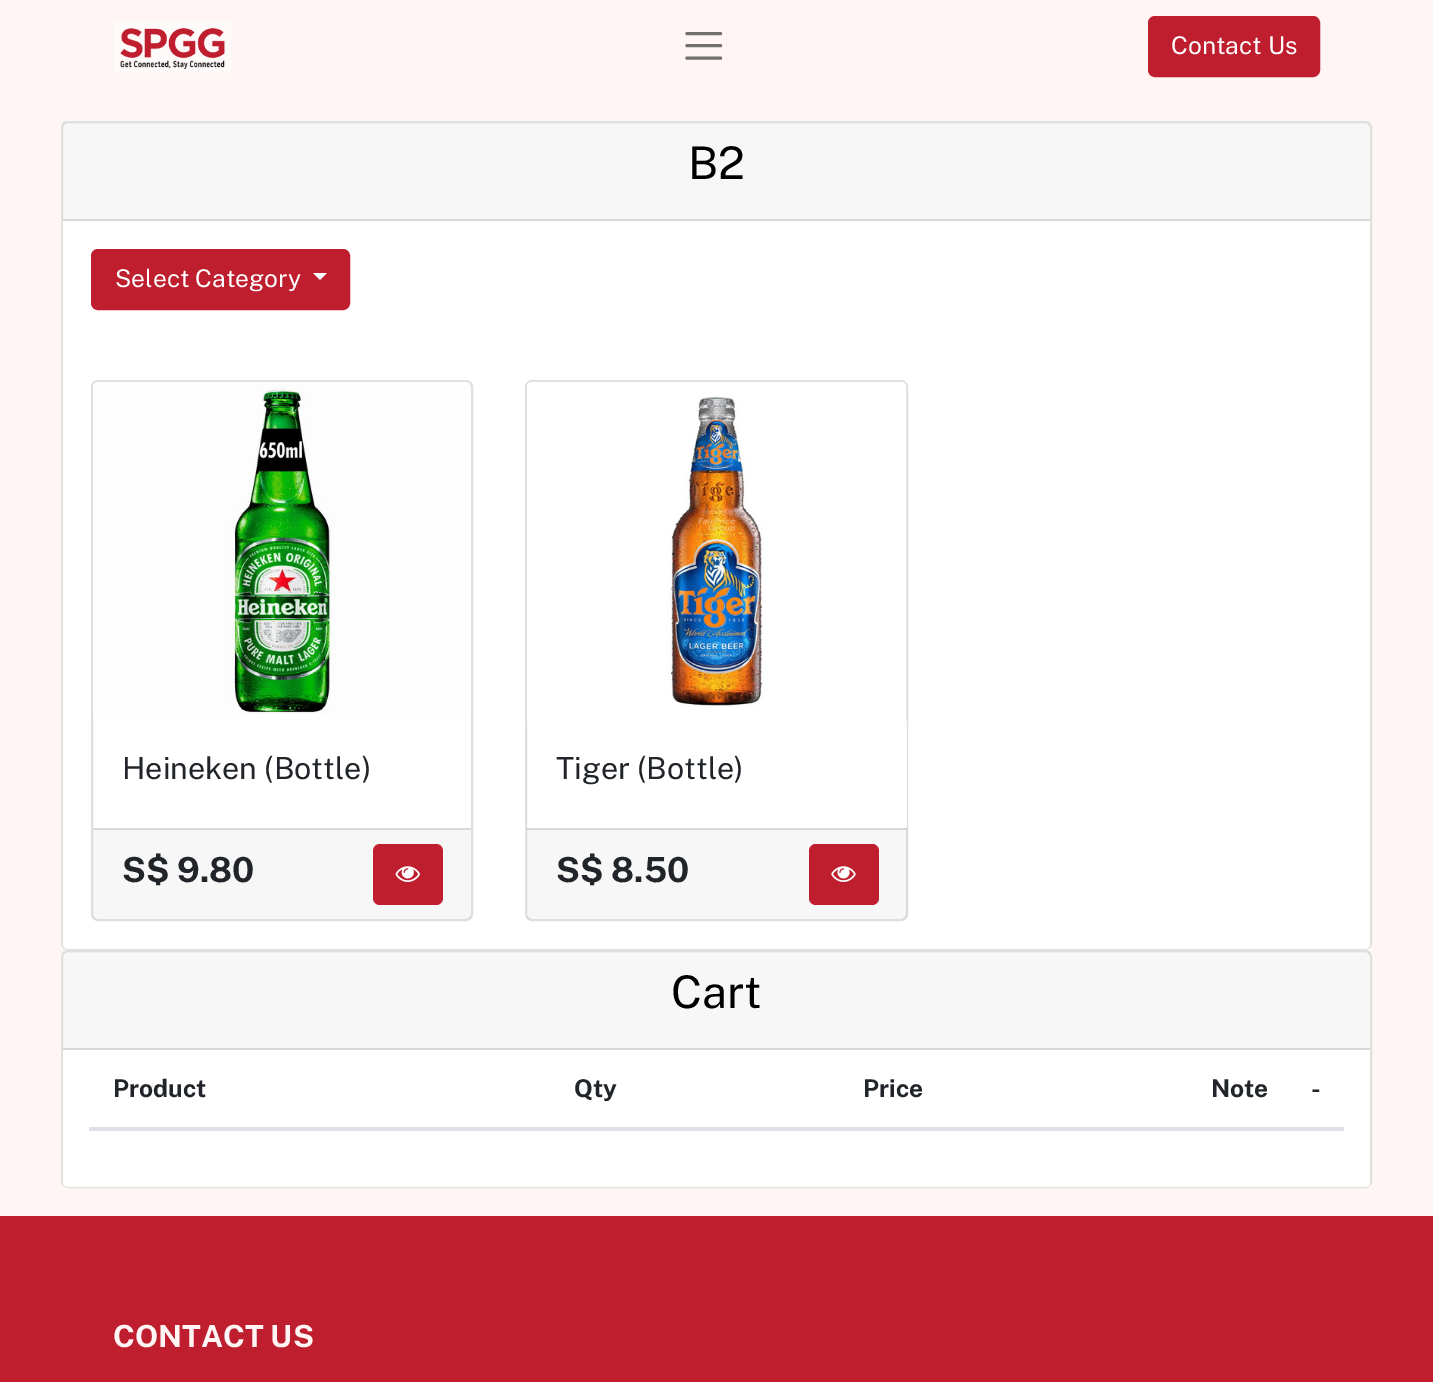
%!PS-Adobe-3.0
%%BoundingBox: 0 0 1433 1382
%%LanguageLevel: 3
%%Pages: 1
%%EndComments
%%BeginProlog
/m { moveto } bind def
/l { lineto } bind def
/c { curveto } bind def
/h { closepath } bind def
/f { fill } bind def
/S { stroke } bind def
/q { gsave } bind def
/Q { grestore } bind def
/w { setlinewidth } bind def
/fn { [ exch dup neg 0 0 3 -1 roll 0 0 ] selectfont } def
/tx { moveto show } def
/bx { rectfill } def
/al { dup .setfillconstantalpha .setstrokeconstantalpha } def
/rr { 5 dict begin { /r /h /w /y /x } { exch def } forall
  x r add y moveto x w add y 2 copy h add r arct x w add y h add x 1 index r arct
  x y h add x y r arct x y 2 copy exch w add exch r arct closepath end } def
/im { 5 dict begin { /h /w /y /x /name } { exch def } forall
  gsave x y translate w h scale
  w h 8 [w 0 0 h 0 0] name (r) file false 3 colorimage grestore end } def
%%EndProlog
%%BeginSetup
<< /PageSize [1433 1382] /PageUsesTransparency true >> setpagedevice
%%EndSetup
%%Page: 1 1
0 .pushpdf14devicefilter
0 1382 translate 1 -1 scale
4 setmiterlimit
1 0.961 0.961 setrgbcolor
0 0 1433 1382 bx
(image0.raw) 114 21 117 52 im
0.451 0.431 0.431 setrgbcolor
3.1 w
1 setlinecap
687 33.5 m 720.5 33.5 l 687 45.5 m 720.5 45.5 l 687 58 m 720.5 58 l S
0.745 0.118 0.176 setrgbcolor
1149 17 170 59 6 rr q f Q
2 w
0 setlinecap
S
/PublicSans-Regular 24.5 fn
1 setgray
(Contact Us) 1171 54 tx
61 121 1311 829 7 rr f
0.12 al
0 setgray
62 122 1309 827 6 rr S
0.03 al
63 123 1307 96 bx
1 al
0.847 setgray
63 219 1307 2 bx
/PublicSans-Regular 45 fn
0 setgray
(B2) 688 179 tx
0.9 al
1 setgray
63 221 m 1370 221 l 1370 944 l 1370 947 1368 949 1365 949 c 68 949 l 65 949 63 947 63 944 c h f
1 al
0.745 0.118 0.176 setrgbcolor
92 250 257 59 6 rr q f Q
S
/PublicSans-Regular 24.5 fn
1 setgray
(Select Category) 115 287 tx
313 273 m 327 273 l 320 280 l h f
0.875 setgray
92 381 380 539 6 rr S
(image1.raw) 93 381 377 333 im
/PublicSans-Regular 30.5 fn
0.129 0.145 0.161 setrgbcolor
(Heineken \(Bottle\)) 122 779 tx
0.03 al
0 setgray
93 830 378 89 bx
1 al
0.847 setgray
93 828 378 2 bx
/PublicSans-Bold 34.5 fn
0.129 0.145 0.161 setrgbcolor
(S$ 9.80) 122 882 tx
0.745 0.118 0.176 setrgbcolor
380 844 m 436 844 l 440 844 443 847 443 851 c 443 898 l 443 902 440 905 436 905 c 380 905 l 376 905 373 902 373 898 c 373 851 l 373 847 376 844 380 844 c h f
(image2.raw) 395 866 25 16 im
0.875 setgray
526 381 381 539 6 rr S
(image3.raw) 527 381 380 340 im
0.9 al
1 setgray
906 721 1 107 bx
/PublicSans-Regular 30.5 fn
1 al
0.129 0.145 0.161 setrgbcolor
(Tiger \(Bottle\)) 556 779 tx
0.03 al
0 setgray
527 828 380 91 bx
0.12 al
527 828 380 2 bx
/PublicSans-Bold 34.5 fn
1 al
0.129 0.145 0.161 setrgbcolor
(S$ 8.50) 556 882 tx
0.745 0.118 0.176 setrgbcolor
816 844 m 872 844 l 876 844 879 847 879 851 c 879 898 l 879 902 876 905 872 905 c 816 905 l 812 905 809 902 809 898 c 809 851 l 809 847 812 844 816 844 c h f
(image4.raw) 831 866 25 16 im
1 setgray
61 950 1311 238 7 rr f
0.12 al
0 setgray
62 951 1309 236 6 rr S
0.03 al
63 952 1307 96 bx
1 al
0.847 setgray
63 1048 1307 2 bx
/PublicSans-Regular 45 fn
0 setgray
(Cart) 671 1008 tx
0.9 al
1 setgray
63 1050 m 1370 1050 l 1370 1182 l 1370 1185 1368 1187 1365 1187 c 68 1187 l 65 1187 63 1185 63 1182 c h f
/PublicSans-Bold 24.5 fn
1 al
0.129 0.145 0.161 setrgbcolor
(Product) 113 1097 tx
(Qty) 574 1097 tx
(Price) 863 1097 tx
(Note) 1211 1097 tx
(-) 1311 1097 tx
0.871 0.886 0.902 setrgbcolor
89 1127 1255 4 bx
0.745 0.118 0.176 setrgbcolor
0 1216 1433 166 bx
/PublicSans-Bold 30.5 fn
1 0.961 0.961 setrgbcolor
(CONTACT US) 113 1347 tx
.poppdf14devicefilter showpage
%%EOF
